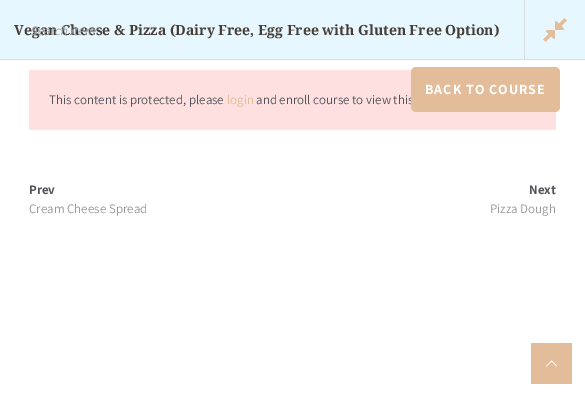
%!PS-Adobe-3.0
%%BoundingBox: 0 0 585 397
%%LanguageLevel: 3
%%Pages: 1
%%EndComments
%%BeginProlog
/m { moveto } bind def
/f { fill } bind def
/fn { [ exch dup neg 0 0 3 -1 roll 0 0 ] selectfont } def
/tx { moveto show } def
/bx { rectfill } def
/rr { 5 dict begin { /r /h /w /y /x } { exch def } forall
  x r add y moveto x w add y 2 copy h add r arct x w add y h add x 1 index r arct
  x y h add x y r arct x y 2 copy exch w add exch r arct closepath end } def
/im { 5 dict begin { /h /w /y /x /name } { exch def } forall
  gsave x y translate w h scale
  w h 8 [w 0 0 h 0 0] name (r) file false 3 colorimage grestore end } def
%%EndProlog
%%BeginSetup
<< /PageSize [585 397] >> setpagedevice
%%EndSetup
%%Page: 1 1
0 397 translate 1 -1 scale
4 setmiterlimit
1 setgray
0 0 585 397 bx
0.906 0.969 1 setrgbcolor
0 0 585 59 bx
0.867 setgray
0 59 585 1 bx
/NotoSerif-Bold 14 fn
0.275 0.239 0.204 setrgbcolor
(Vegan Cheese & Pizza \(Dairy Free, Egg Free with Gluten Free Option\)) 14 35 tx
0.867 setgray
524 0 1 60 bx
(image0.raw) 543 18 24 24 im
/Assistant-Italic 13 fn
0.624 0.639 0.643 setrgbcolor
(Search item) 30 35 tx
1 0.878 0.878 setrgbcolor
29 70 527 60 bx
/Assistant-Regular 13 fn
0.329 0.325 0.353 setrgbcolor
(and enroll course to view this) 256 104 tx
0.89 0.737 0.604 setrgbcolor
411 67 149 45 5 rr f
/Assistant-Bold 14 fn
1 setgray
425 94 m 1 0 (BACK TO COURSE) ashow
/Assistant-Regular 13 fn
0.329 0.325 0.353 setrgbcolor
(This content is protected, please) 49 104 tx
0.89 0.737 0.604 setrgbcolor
(login) 227 104 tx
/Assistant-Bold 13 fn
0.329 0.325 0.353 setrgbcolor
(Prev) 29 194 tx
/Assistant-Regular 13 fn
0.6 setgray
(Cream Cheese Spread) 29 213 tx
/Assistant-Bold 13 fn
0.329 0.325 0.353 setrgbcolor
(Next) 529 194 tx
/Assistant-Regular 13 fn
0.6 setgray
(Pizza Dough) 490 213 tx
0.89 0.737 0.604 setrgbcolor
531 343 41 41 bx
(image1.raw) 546 360 12 7 im
showpage
%%EOF
